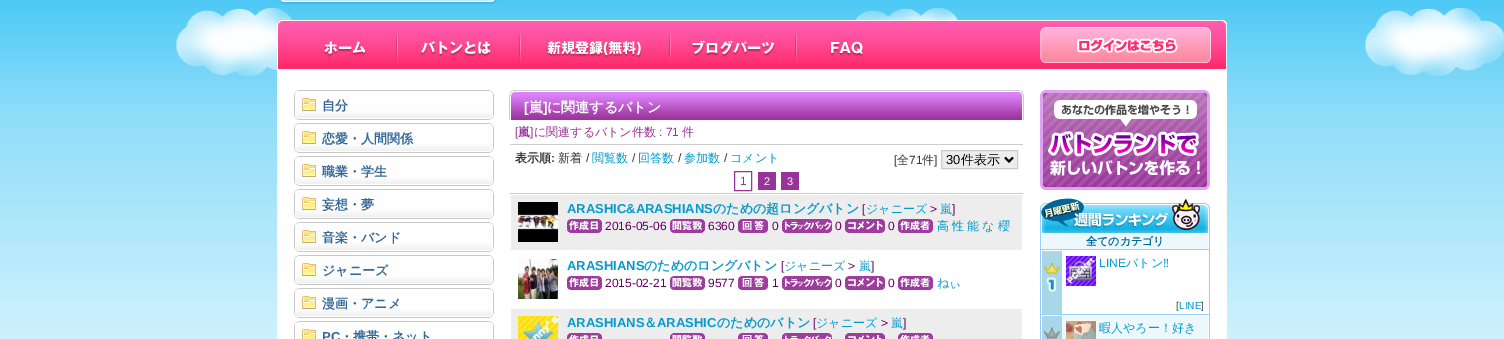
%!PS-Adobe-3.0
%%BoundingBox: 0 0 1504 339
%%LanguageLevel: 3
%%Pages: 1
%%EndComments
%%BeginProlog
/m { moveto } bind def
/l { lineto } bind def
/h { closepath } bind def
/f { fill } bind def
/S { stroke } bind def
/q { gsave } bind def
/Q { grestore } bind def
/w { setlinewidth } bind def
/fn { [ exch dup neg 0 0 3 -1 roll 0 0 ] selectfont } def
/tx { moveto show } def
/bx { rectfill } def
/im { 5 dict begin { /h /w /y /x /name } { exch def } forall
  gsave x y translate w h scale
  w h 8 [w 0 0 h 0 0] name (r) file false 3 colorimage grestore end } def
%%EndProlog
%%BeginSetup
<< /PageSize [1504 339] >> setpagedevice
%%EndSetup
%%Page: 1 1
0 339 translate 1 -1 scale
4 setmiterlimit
1 setgray
0 0 1504 339 bx
(image0.raw) 0 0 1504 339 im
(image1.raw) 176 8 1328 68 im
(image2.raw) 277 0 221 5 im
277 69 950 270 bx
(image3.raw) 277 20 950 49 im
(image4.raw) 324 31 74 31 im
(image5.raw) 420 31 101 31 im
(image6.raw) 547 31 124 31 im
(image7.raw) 691 31 106 31 im
(image8.raw) 830 41 34 16 im
(image9.raw) 1040 27 171 36 im
(image10.raw) 294 90 200 30 im
/WenQuanYiZenHei-Bold 13 fn
0.2 0.4 0.6 setrgbcolor
(自分) 322 110 tx
(image10.raw) 294 123 200 30 im
(恋愛・人間関係) 322 143 tx
(image10.raw) 294 156 200 30 im
(職業・学生) 322 176 tx
(image10.raw) 294 189 200 30 im
(妄想・夢) 322 209 tx
(image10.raw) 294 222 200 30 im
(音楽・バンド) 322 242 tx
(image10.raw) 294 255 200 30 im
(ジャニーズ) 322 275 tx
(image10.raw) 294 288 200 30 im
(漫画・アニメ) 322 308 tx
(image11.raw) 294 321 200 18 im
/LiberationSans-Bold 13 fn
(PC) 322 341 tx
/WenQuanYiZenHei-Bold 13 fn
(・携帯・ネット) 340 341 tx
(image12.raw) 509 90 515 30 im
/LiberationSans-Bold 14 fn
1 setgray
([) 524 112 tx
/WenQuanYiZenHei-Bold 14 fn
(嵐) 529 112 tx
/LiberationSans-Bold 14 fn
(]) 543 112 tx
/WenQuanYiZenHei-Bold 14 fn
(に関連するバトン) 547 112 tx
/LiberationSans-Regular 12 fn
0.6 0.2 0.6 setrgbcolor
([) 515 136 tx
/WenQuanYiZenHei-Bold 12 fn
(嵐) 518 136 tx
/LiberationSans-Regular 12 fn
(]) 530 136 tx
/WenQuanYiZenHei-Medium 12 fn
(に関連するバトン件数) 534 136 tx
/LiberationSans-Regular 12 fn
(: 71) 659 136 tx
/WenQuanYiZenHei-Medium 12 fn
(件) 682 136 tx
0.8 setgray
510 193 513 1 bx
510 144 513 1 bx
/WenQuanYiZenHei-Bold 12 fn
0.2 setgray
(表示順) 515 162 tx
/LiberationSans-Bold 12 fn
(:) 551 162 tx
/WenQuanYiZenHei-Medium 12 fn
(新着) 558 162 tx
/LiberationSans-Regular 12 fn
(/) 586 162 tx
/WenQuanYiZenHei-Medium 12 fn
0.024 0.608 0.804 setrgbcolor
(閲覧数) 592 162 tx
/LiberationSans-Regular 12 fn
0.2 setgray
(/) 632 162 tx
/WenQuanYiZenHei-Medium 12 fn
0.024 0.608 0.804 setrgbcolor
(回答数) 638 162 tx
/LiberationSans-Regular 12 fn
0.2 setgray
(/) 678 162 tx
/WenQuanYiZenHei-Medium 12 fn
0.024 0.608 0.804 setrgbcolor
(参加数) 684 162 tx
/LiberationSans-Regular 12 fn
0.2 setgray
(/) 724 162 tx
/WenQuanYiZenHei-Medium 12 fn
0.024 0.608 0.804 setrgbcolor
(コメント) 730 162 tx
/LiberationSans-Regular 12 fn
0.2 setgray
([) 894 164 tx
/WenQuanYiZenHei-Medium 12 fn
(全) 897 164 tx
/LiberationSans-Regular 12 fn
(71) 909 164 tx
/WenQuanYiZenHei-Medium 12 fn
(件) 922 164 tx
/LiberationSans-Regular 12 fn
(]) 934 164 tx
0.929 setgray
941.5 150.5 m 1017.5 150.5 l 1017.5 168.5 l 941.5 168.5 l h q f Q
0.8 setgray
S
0 setgray
2 w
1005 157.5 m 1009 161.5 l 1013 157.5 l S
/LiberationSans-Regular 13 fn
(30) 946 164 tx
/WenQuanYiZenHei-Medium 13 fn
(件表示) 961 164 tx
0.6 0.2 0.6 setrgbcolor
1 w
734.5 171.5 17 19 rectstroke
/LiberationSans-Regular 12 fn
(1) 740 185 tx
758 172 18 18 bx
/LiberationSans-Regular 11 fn
1 setgray
(2) 764 185 tx
0.6 0.2 0.6 setrgbcolor
781 172 18 18 bx
1 setgray
(3) 787 185 tx
0.929 setgray
511 195 511 55 bx
(image13.raw) 518 202 40 40 im
/LiberationSans-Bold 13 fn
0.024 0.608 0.804 setrgbcolor
(ARASHIC&ARASHIANS) 567 213 tx
/WenQuanYiZenHei-Bold 13 fn
(のための超ロングバトン) 713 213 tx
/LiberationSans-Regular 12 fn
0.4 0 0.4 setrgbcolor
([) 862 213 tx
/WenQuanYiZenHei-Medium 12 fn
0.024 0.608 0.804 setrgbcolor
(ジャニーズ) 866 213 tx
/LiberationSans-Regular 12 fn
0.4 0 0.4 setrgbcolor
(>) 930 213 tx
/WenQuanYiZenHei-Medium 12 fn
0.024 0.608 0.804 setrgbcolor
(嵐) 940 213 tx
/LiberationSans-Regular 12 fn
0.4 0 0.4 setrgbcolor
(]) 952 213 tx
(image14.raw) 567 219 35 14 im
(2016-05-06) 605 230 tx
(image15.raw) 670 219 35 14 im
(6360) 708 230 tx
(image16.raw) 738 219 30 14 im
(0) 772 230 tx
(image17.raw) 782 219 50 14 im
(0) 835 230 tx
(image18.raw) 845 219 40 14 im
(0) 888 230 tx
(image19.raw) 898 219 35 14 im
/WenQuanYiZenHei-Medium 12 fn
0.024 0.608 0.804 setrgbcolor
937 230 m -0.5 0 32 (高 性 能 な 櫻) widthshow
(image20.raw) 518 259 40 40 im
/LiberationSans-Bold 13 fn
(ARASHIANS) 567 270 tx
/WenQuanYiZenHei-Bold 13 fn
(のためのロングバトン) 644 270 tx
/LiberationSans-Regular 12 fn
0.4 0 0.4 setrgbcolor
([) 781 270 tx
/WenQuanYiZenHei-Medium 12 fn
0.024 0.608 0.804 setrgbcolor
(ジャニーズ) 784 270 tx
/LiberationSans-Regular 12 fn
0.4 0 0.4 setrgbcolor
(>) 848 270 tx
/WenQuanYiZenHei-Medium 12 fn
0.024 0.608 0.804 setrgbcolor
(嵐) 859 270 tx
/LiberationSans-Regular 12 fn
0.4 0 0.4 setrgbcolor
(]) 871 270 tx
(image21.raw) 567 276 35 14 im
(2015-02-21) 605 287 tx
(image22.raw) 670 276 35 14 im
(9577) 708 287 tx
(image23.raw) 738 276 30 14 im
(1) 772 287 tx
(image24.raw) 782 276 50 14 im
(0) 835 287 tx
(image25.raw) 845 276 40 14 im
(0) 888 287 tx
(image26.raw) 898 276 35 14 im
/WenQuanYiZenHei-Medium 12 fn
0.024 0.608 0.804 setrgbcolor
(ねぃ) 937 287 tx
0.929 setgray
511 309 511 30 bx
(image27.raw) 518 316 40 23 im
/LiberationSans-Bold 13 fn
0.024 0.608 0.804 setrgbcolor
(ARASHIANS) 567 327 tx
/WenQuanYiZenHei-Bold 13 fn
(＆) 644 327 tx
/LiberationSans-Bold 13 fn
(ARASHIC) 657 327 tx
/WenQuanYiZenHei-Bold 13 fn
(のためのバトン) 717 327 tx
/LiberationSans-Regular 12 fn
0.4 0 0.4 setrgbcolor
([) 813 327 tx
/WenQuanYiZenHei-Medium 12 fn
0.024 0.608 0.804 setrgbcolor
(ジャニーズ) 816 327 tx
/LiberationSans-Regular 12 fn
0.4 0 0.4 setrgbcolor
(>) 881 327 tx
/WenQuanYiZenHei-Medium 12 fn
0.024 0.608 0.804 setrgbcolor
(嵐) 891 327 tx
/LiberationSans-Regular 12 fn
0.4 0 0.4 setrgbcolor
(]) 903 327 tx
(image28.raw) 567 333 35 6 im
(image29.raw) 670 333 35 6 im
(image30.raw) 738 333 30 6 im
(image31.raw) 782 333 50 6 im
(image32.raw) 845 333 40 6 im
(image33.raw) 898 333 35 6 im
(image34.raw) 1040 90 170 100 im
(image35.raw) 1040 233 170 106 im
(image36.raw) 1040 198 170 35 im
1 setgray
1041 233 168 1 bx
0.6 0.8 1 setrgbcolor
1041 249 168 1 bx
/WenQuanYiZenHei-Bold 11 fn
0 0.4 0.6 setrgbcolor
(全てのカテゴリ) 1086 245 tx
1 setgray
1042 251 166 63 bx
(image37.raw) 1042 251 20 63 im
1041 250 168 1 bx
0.6 0.8 1 setrgbcolor
1041 314 168 1 bx
(image38.raw) 1066 256 30 30 im
/LiberationSans-Regular 12 fn
0.024 0.608 0.804 setrgbcolor
(LINE) 1099 267 tx
/WenQuanYiZenHei-Medium 12 fn
(バトン) 1126 267 tx
/LiberationSans-Regular 12 fn
(‼) 1163 267 tx
/LiberationSans-Regular 10 fn
0.2 setgray
([) 1176 309 tx
0.024 0.608 0.804 setrgbcolor
(LINE) 1179 309 tx
0.2 setgray
(]) 1201 309 tx
(image39.raw) 1042 316 20 23 im
1 setgray
1041 315 168 1 bx
(image40.raw) 1066 321 30 18 im
/WenQuanYiZenHei-Medium 12 fn
0.024 0.608 0.804 setrgbcolor
(暇人やろー！好き) 1099 332 tx
showpage
%%EOF
